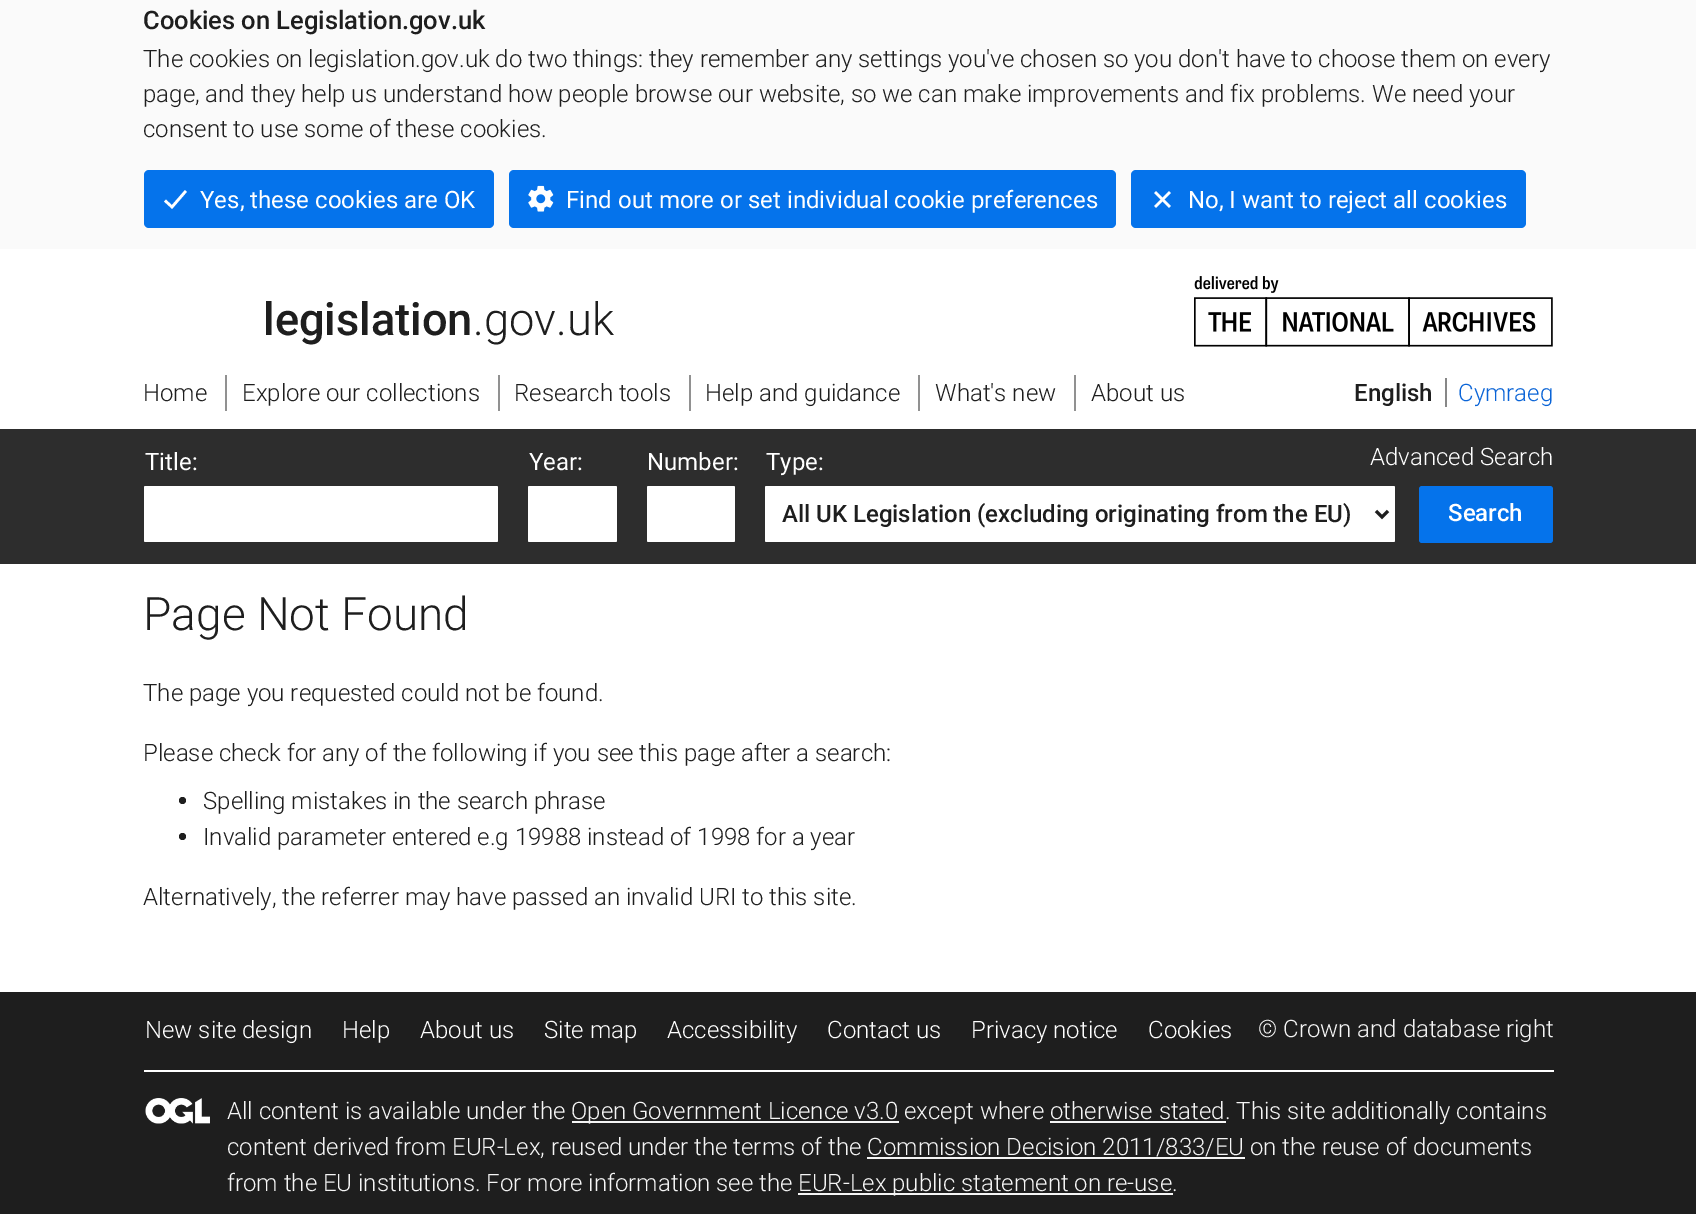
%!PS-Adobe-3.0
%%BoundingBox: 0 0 1696 1214
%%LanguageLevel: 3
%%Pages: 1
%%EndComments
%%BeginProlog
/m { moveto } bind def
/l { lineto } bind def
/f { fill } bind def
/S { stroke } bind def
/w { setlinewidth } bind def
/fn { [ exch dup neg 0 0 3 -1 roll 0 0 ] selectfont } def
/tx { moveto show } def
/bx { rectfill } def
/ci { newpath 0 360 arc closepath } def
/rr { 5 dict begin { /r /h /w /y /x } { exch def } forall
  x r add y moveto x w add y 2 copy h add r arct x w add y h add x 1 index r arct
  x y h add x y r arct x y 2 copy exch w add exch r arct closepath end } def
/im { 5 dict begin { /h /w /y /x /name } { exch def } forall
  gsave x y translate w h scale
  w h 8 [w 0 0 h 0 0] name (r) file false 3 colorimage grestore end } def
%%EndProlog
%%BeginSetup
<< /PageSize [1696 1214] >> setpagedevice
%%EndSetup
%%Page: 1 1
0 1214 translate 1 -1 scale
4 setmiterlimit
1 setgray
0 0 1696 1214 bx
0.98 setgray
0 0 1696 249 bx
/Roboto-Medium 25.5 fn
0.118 setgray
(Cookies on Legislation.gov.uk) 143 29 tx
/Roboto-Light 24 fn
(The cookies on legislation.gov.uk do two things: they remember any settings you've chosen so you don't have to choose them on every) 143 67 tx
(page, and they help us understand how people browse our website, so we can make improvements and fix problems. We need your) 143 102 tx
(consent to use some of these cookies.) 143 137 tx
0.02 0.451 0.922 setrgbcolor
144 170 350 58 5 rr f
1 setgray
2.6 w
2 setlinecap
185 192 m 172 207 l 166 201.5 l S
/Roboto-Regular 24 fn
(Yes, these cookies are OK) 200 208 tx
0.02 0.451 0.922 setrgbcolor
509 170 607 58 5 rr f
(image0.raw) 528 185 26 27 im
1 setgray
(Find out more or set individual cookie preferences) 566 208 tx
0.02 0.451 0.922 setrgbcolor
1131 170 395 58 5 rr f
(image1.raw) 1154 191 17 17 im
1 setgray
(No, I want to reject all cookies) 1188 208 tx
/Roboto-Medium 45.25 fn
0.118 setgray
(legislation) 263 335 tx
/Roboto-Light 45.25 fn
(.gov.uk) 473 335 tx
(image2.raw) 1194 276 359 71 im
/Roboto-Medium 24 fn
(English) 1354 401 tx
0.529 setgray
1445 378 2 29 bx
/Roboto-Light 24 fn
0.039 0.392 0.843 setrgbcolor
(Cymraeg) 1458 401 tx
0.176 setgray
0 429 1696 135 bx
0.118 setgray
(Home) 143 401 tx
0.569 setgray
225 375 2 36 bx
0.118 setgray
(Explore our collections) 242 401 tx
0.569 setgray
498 375 2 36 bx
0.118 setgray
(Research tools) 514 401 tx
0.569 setgray
689 375 2 36 bx
0.118 setgray
(Help and guidance) 705 401 tx
0.569 setgray
918 375 2 36 bx
0.118 setgray
(What's new) 935 401 tx
0.569 setgray
1074 375 2 36 bx
0.118 setgray
(About us) 1091 401 tx
/Roboto-Regular 24 fn
1 setgray
(Title:) 145 470 tx
144 486 354 56 1.5 rr f
(Year:) 529 470 tx
528 486 89 56 1.5 rr f
(Number:) 647 470 tx
647 486 88 56 1.5 rr f
(Type:) 766 470 tx
765 486 630 56 1.5 rr f
0.118 setgray
3 w
0 setlinecap
1376 511 m 1382 517 l 1388 511 l S
/Roboto-Medium 24 fn
(All UK Legislation \(excluding originating from the EU\)) 782 522 tx
/Roboto-Light 24 fn
1 setgray
(Advanced Search) 1370 465 tx
0.02 0.451 0.922 setrgbcolor
1419 486 134 57 3 rr f
/Roboto-Medium 24 fn
1 setgray
(Search) 1448 521 tx
/Roboto-Light 46 fn
0.118 setgray
(Page Not Found) 143 630 tx
/Roboto-Light 24 fn
(The page you requested could not be found.) 143 701 tx
(Please check for any of the following if you see this page after a search:) 143 761 tx
182.5 800.5 3.5 ci f
(Spelling mistakes in the search phrase) 203 809 tx
182.5 836.5 3.5 ci f
(Invalid parameter entered e.g 19988 instead of 1998 for a year) 203 845 tx
(Alternatively, the referrer may have passed an invalid URI to this site.) 143 905 tx
0 992 1696 222 bx
1 setgray
144 1070 1410 2 bx
0.961 setgray
(© Crown and database right) 1258 1037 tx
(image3.raw) 145 1098 65 26 im
(All content is available under the) 227 1119 tx
572 1121 327 2 bx
(Open Government Licence v3.0 except where otherwise stated. This site additionally contains) 571 1119 tx
1050 1121 176 2 bx
(content derived from EUR-Lex, reused under the terms of the Commission Decision 2011/833/EU on the reuse of documents) 227 1155 tx
867 1157 378 2 bx
(from the EU institutions. For more information see the) 227 1191 tx
798 1193 375 2 bx
(EUR-Lex public statement on re-use.) 798 1191 tx
1 setgray
(New site design) 145 1038 tx
(Help) 342 1038 tx
(About us) 420 1038 tx
(Site map) 544 1038 tx
(Accessibility) 667 1038 tx
(Contact us) 827 1038 tx
(Privacy notice) 971 1038 tx
(Cookies) 1148 1038 tx
showpage
%%EOF
